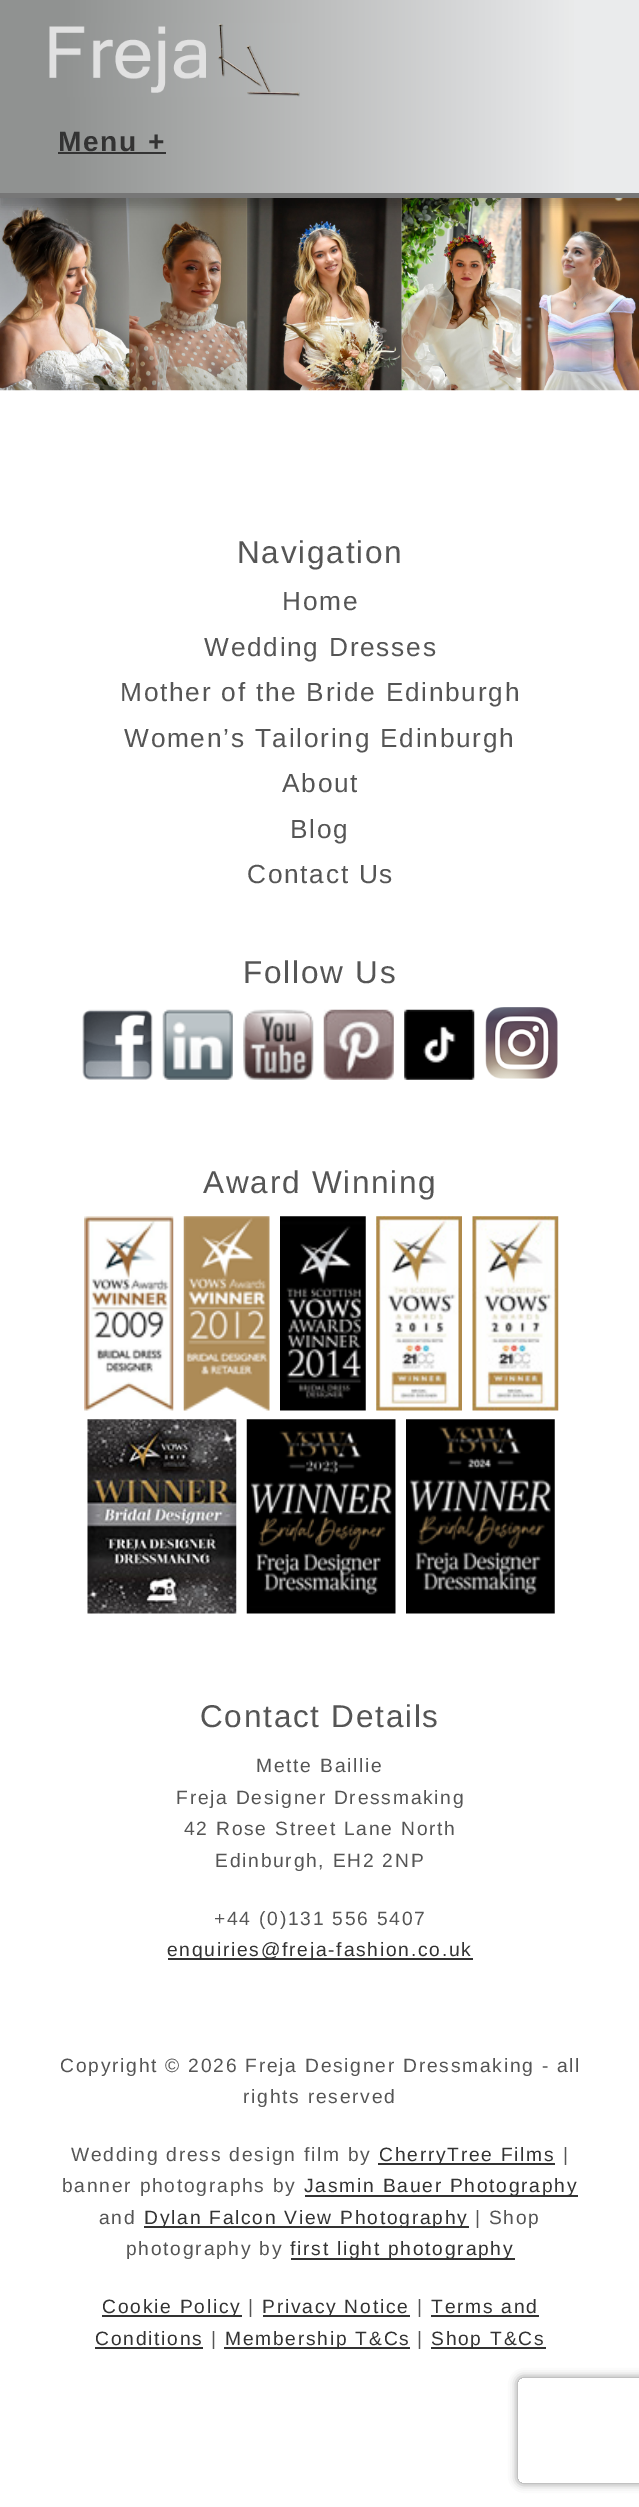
%!PS-Adobe-3.0
%%BoundingBox: 0 0 639 2507
%%LanguageLevel: 3
%%Pages: 1
%%EndComments
%%BeginProlog
/m { moveto } bind def
/l { lineto } bind def
/c { curveto } bind def
/h { closepath } bind def
/q { gsave } bind def
/Q { grestore } bind def
/fn { [ exch dup neg 0 0 3 -1 roll 0 0 ] selectfont } def
/bx { rectfill } def
/al { dup .setfillconstantalpha .setstrokeconstantalpha } def
/rr { 5 dict begin { /r /h /w /y /x } { exch def } forall
  x r add y moveto x w add y 2 copy h add r arct x w add y h add x 1 index r arct
  x y h add x y r arct x y 2 copy exch w add exch r arct closepath end } def
/sh { 12 dict begin { /a /b /q /h /w /y /x } { exch def } forall gsave /was 0 def
  9 -2 -9 { dup b mul 4 div /e exch def 1 sub .425 mul 2.718 exch exp 1 add a .99 .min exch div /now exch def
    1 1 now sub 1 was sub div sub al /was now def
    w h .min e 2 mul add 0 gt { x e sub y e sub w e 2 mul add h e 2 mul add
      q e add b .6 mul add w h .min 2 div e add .min 0 .max rr fill } if } for grestore end } def
/im { 5 dict begin { /h /w /y /x /name } { exch def } forall
  gsave x y translate w h scale
  w h 8 [w 0 0 h 0 0] name (r) file false 3 colorimage grestore end } def
%%EndProlog
%%BeginSetup
<< /PageSize [639 2507] /PageUsesTransparency true >> setpagedevice
%%EndSetup
%%Page: 1 1
0 .pushpdf14devicefilter
0 2507 translate 1 -1 scale
4 setmiterlimit
1 setgray
0 0 639 2507 bx
(image1.raw) 0 198 639 193 im
0 setgray
0 9 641 198 0 4.5 0.2 sh
q 0 0 m 639 0 l 639 193 l 0 193 l h clip newpath
<< /ShadingType 2 /ColorSpace /DeviceRGB /Coords [0 96 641 96] /Extend [true true] /Function << /FunctionType 3 /Domain [0 1] /Functions [<< /FunctionType 2 /Domain [0 1] /C0 [0.565 0.573 0.569] /C1 [0.565 0.573 0.569] /N 1 >> << /FunctionType 2 /Domain [0 1] /C0 [0.565 0.573 0.569] /C1 [0.918 0.922 0.925] /N 1 >> << /FunctionType 2 /Domain [0 1] /C0 [0.918 0.922 0.925] /C1 [0.918 0.922 0.925] /N 1 >>] /Bounds [0.1 0.9] /Encode [0 1 0 1 0 1] >> >> shfill Q
0.467 setgray
0 193 639 5 bx
(image0.raw) 49 23 251 74 im
/LiberationSans-Bold 28 fn
0.2 setgray
58 151 m 1.75 0 (Menu +) ashow
58 152 108 2 bx
/LiberationSans-Regular 31.5 fn
0.333 setgray
237 563 m 1.75 0 (Navigation) ashow
/LiberationSans-Regular 26.25 fn
282 610 m 1.75 0 (Home) ashow
204 656 m 1.75 0 (Wedding Dresses) ashow
120 701 m 1.75 0 (Mother of the Bride Edinburgh) ashow
124 747 m 1.75 0 (Women’s Tailoring Edinburgh) ashow
282 792 m 1.75 0 (About) ashow
290 838 m 1.75 0 (Blog) ashow
247 883 m 1.75 0 (Contact Us) ashow
/LiberationSans-Regular 31.5 fn
243 983 m 1.75 0 (Follow Us) ashow
(image2.raw) 82 1009 71 71 im
(image3.raw) 162 1009 71 71 im
(image4.raw) 243 1009 71 71 im
(image5.raw) 323 1009 71 71 im
(image6.raw) 404 1009 71 71 im
(image7.raw) 485 1007 73 72 im
203 1193 m 1.75 0 (Award Winning) ashow
(image8.raw) 84 1216 90 195 im
(image9.raw) 183 1216 87 195 im
(image10.raw) 280 1216 86 195 im
(image11.raw) 376 1216 86 195 im
(image12.raw) 472 1216 87 195 im
(image13.raw) 87 1419 150 195 im
(image14.raw) 246 1419 150 195 im
(image15.raw) 406 1419 149 195 im
200 1727 m 1.75 0 (Contact Details) ashow
/LiberationSans-Regular 19.25 fn
256 1772 m 1.75 0 (Mette Baillie) ashow
176 1804 m 1.75 0 (Freja Designer Dressmaking) ashow
184 1835 m 1.75 0 (42 Rose Street Lane North) ashow
215 1867 m 1.75 0 (Edinburgh, EH2 2NP) ashow
214 1925 m 1.75 0 (+44 \(0\)131 556 5407) ashow
0.2 setgray
168 1958 305 2 bx
167 1956 m 1.75 0 (enquiries@freja-fashion.co.uk) ashow
0.333 setgray
60 2072 m 1.75 0 (Copyright © 2026 Freja Designer Dressmaking - all) ashow
243 2103 m 1.75 0 (rights reserved) ashow
71 2161 m 1.75 0 (Wedding dress design film by) ashow
0.2 setgray
378 2163 177 2 bx
379 2161 m 1.75 0 (CherryTree Films) ashow
0.333 setgray
563 2161 m 1.75 0 (|) ashow
62 2192 m 1.75 0 (banner photographs by) ashow
0.2 setgray
305 2195 273 2 bx
304 2192 m 1.75 0 (Jasmin Bauer Photography) ashow
0.333 setgray
99 2224 m 1.75 0 (and) ashow
0.2 setgray
144 2226 325 2 bx
144 2224 m 1.75 0 (Dylan Falcon View Photography) ashow
0.333 setgray
475 2224 m 1.75 0 (| Shop) ashow
126 2255 m 1.75 0 (photography by) ashow
0.2 setgray
291 2258 224 2 bx
290 2255 m 1.75 0 (first light photography) ashow
102 2315 140 2 bx
102 2313 m 1.75 0 (Cookie Policy) ashow
0.333 setgray
248 2313 m 1.75 0 (|) ashow
0.2 setgray
263 2315 147 2 bx
262 2313 m 1.75 0 (Privacy Notice) ashow
0.333 setgray
417 2313 m 1.75 0 (|) ashow
0.2 setgray
431 2313 m 1.75 0 (Terms and) ashow
431 2315 108 2 bx
95 2345 m 1.75 0 (Conditions) ashow
95 2347 108 2 bx
0.333 setgray
211 2345 m 1.75 0 (|) ashow
0.2 setgray
224 2347 186 2 bx
225 2345 m 1.75 0 (Membership T&Cs) ashow
0.333 setgray
417 2345 m 1.75 0 (|) ashow
0.2 setgray
431 2347 115 2 bx
431 2345 m 1.75 0 (Shop T&Cs) ashow
q
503 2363 m 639 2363 l 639 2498 l 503 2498 l h 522 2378 m 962 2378 l 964 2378 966 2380 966 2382 c 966 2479 l 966 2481 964 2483 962 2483 c 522 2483 l 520 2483 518 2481 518 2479 c 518 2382 l 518 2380 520 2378 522 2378 c h eoclip newpath
0.502 setgray
518 2378 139 105 4 4.5 1 sh
Q
.poppdf14devicefilter showpage
%%EOF
